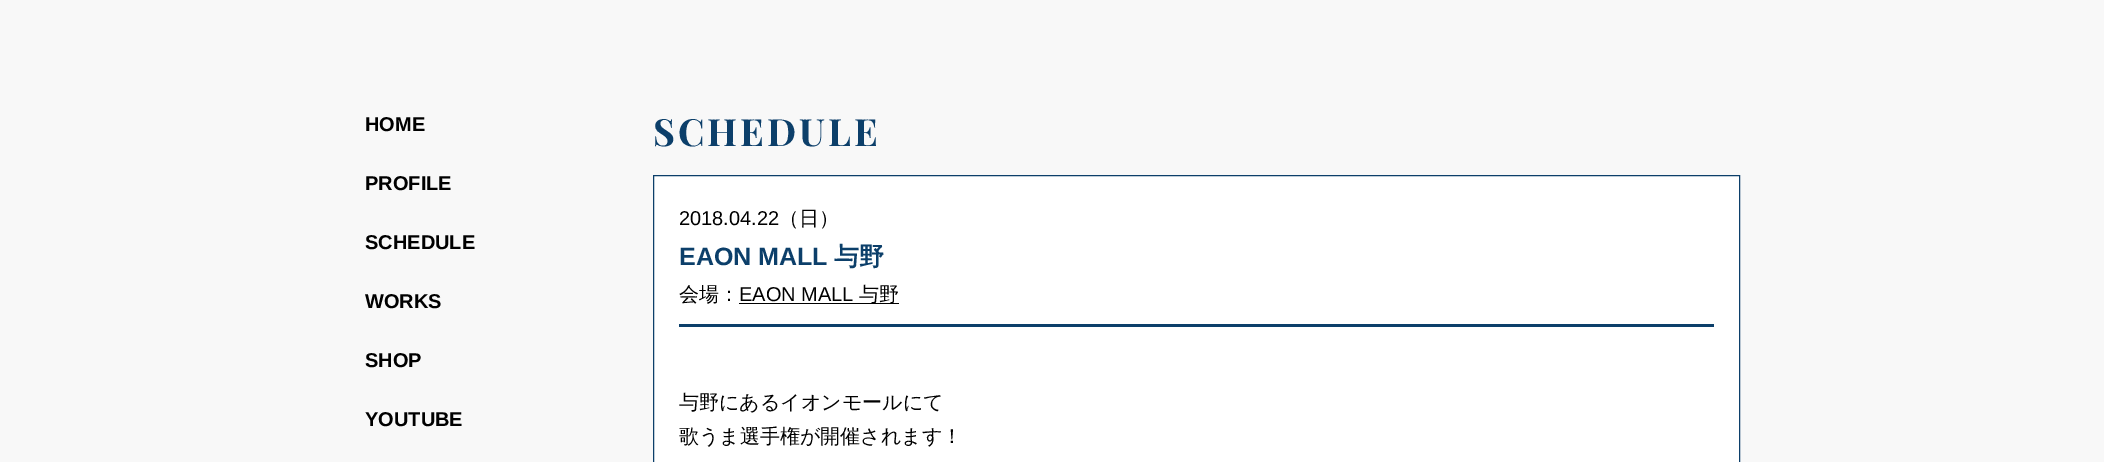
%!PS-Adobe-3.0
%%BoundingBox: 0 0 2104 462
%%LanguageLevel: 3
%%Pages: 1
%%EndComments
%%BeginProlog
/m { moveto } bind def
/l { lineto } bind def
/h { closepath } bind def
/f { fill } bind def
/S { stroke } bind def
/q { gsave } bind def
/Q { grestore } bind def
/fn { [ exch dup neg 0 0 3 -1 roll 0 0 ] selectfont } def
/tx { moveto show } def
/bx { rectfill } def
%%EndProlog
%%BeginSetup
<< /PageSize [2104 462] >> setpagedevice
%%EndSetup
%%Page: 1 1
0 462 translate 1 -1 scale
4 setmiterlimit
0.973 setgray
0 0 2104 462 bx
/LiberationSans-Bold 20 fn
0 setgray
(HOME) 365 131 tx
(PROFILE) 365 190 tx
(SCHEDULE) 365 249 tx
(WORKS) 365 308 tx
(SHOP) 365 367 tx
(YOUTUBE) 365 426 tx
/PlayfairDisplay-Bold 37.5 fn
0.047 0.247 0.416 setrgbcolor
653 146 m 3 0 (SCHEDULE) ashow
1 setgray
653.5 175.5 m 1739.5 175.5 l 1739.5 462.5 l 653.5 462.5 l h q f Q
0.047 0.247 0.416 setrgbcolor
S
679 324 1035 3 bx
/LiberationSans-Regular 20 fn
0 setgray
(2018.04.22) 679 225 tx
/WenQuanYiZenHei-Medium 20 fn
(（日）) 779 225 tx
/LiberationSans-Bold 25 fn
0.047 0.247 0.416 setrgbcolor
(EAON MALL) 679 265 tx
/WenQuanYiZenHei-Bold 25 fn
(与野) 834 265 tx
/WenQuanYiZenHei-Medium 20 fn
0 setgray
(会場：) 679 301 tx
/LiberationSans-Regular 20 fn
(EAON MALL) 739 301 tx
739 303 160 1 bx
/WenQuanYiZenHei-Medium 20 fn
(与野) 859 301 tx
(与野にあるイオンモールにて) 679 409 tx
(歌うま選手権が開催されます！) 679 443 tx
showpage
%%EOF
